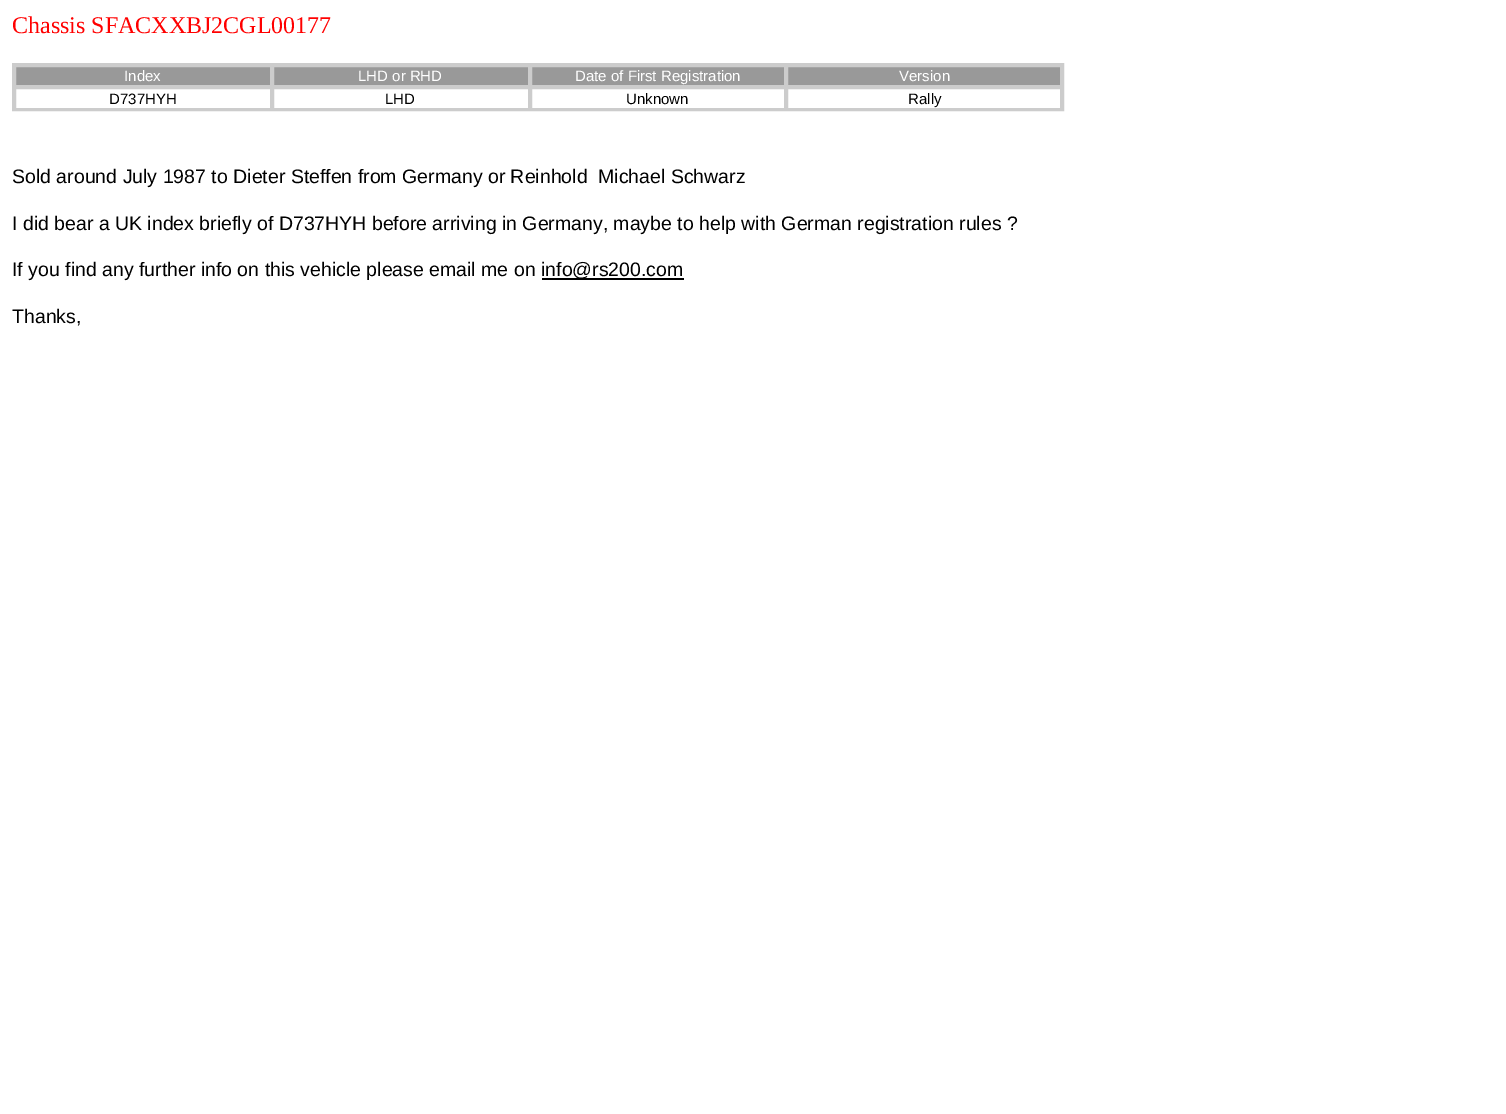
%!PS-Adobe-3.0
%%BoundingBox: 0 0 1506 1114
%%LanguageLevel: 3
%%Pages: 1
%%EndComments
%%BeginProlog
/m { moveto } bind def
/l { lineto } bind def
/h { closepath } bind def
/f { fill } bind def
/S { stroke } bind def
/q { gsave } bind def
/Q { grestore } bind def
/w { setlinewidth } bind def
/fn { [ exch dup neg 0 0 3 -1 roll 0 0 ] selectfont } def
/tx { moveto show } def
/bx { rectfill } def
%%EndProlog
%%BeginSetup
<< /PageSize [1506 1114] >> setpagedevice
%%EndSetup
%%Page: 1 1
0 1114 translate 1 -1 scale
4 setmiterlimit
1 setgray
0 0 1506 1114 bx
/LiberationSerif-Regular 24 fn
1 0 0 setrgbcolor
(Chassis SFACXXBJ2CGL00177) 12 33 tx
0.8 setgray
2 w
13 64 1050 46 rectstroke
0.6 setgray
15 66 m 271 66 l 271 86 l 15 86 l h q f Q
0.8 setgray
S
/LiberationSans-Regular 15 fn
1 setgray
(Index) 124 81 tx
0.6 setgray
273 66 m 529 66 l 529 86 l 273 86 l h q f Q
0.8 setgray
S
1 setgray
(LHD or RHD) 358 81 tx
0.6 setgray
531 66 m 785 66 l 785 86 l 531 86 l h q f Q
0.8 setgray
S
1 setgray
(Date of First Registration) 575 81 tx
0.6 setgray
787 66 m 1061 66 l 1061 86 l 787 86 l h q f Q
0.8 setgray
S
1 setgray
(Version) 899 81 tx
0.8 setgray
15 88 256 21 rectstroke
0 setgray
(D737HYH) 109 104 tx
0.8 setgray
273 88 256 21 rectstroke
0 setgray
(LHD) 385 104 tx
0.8 setgray
531 88 254 21 rectstroke
0 setgray
(Unknown) 626 104 tx
0.8 setgray
787 88 274 21 rectstroke
0 setgray
(Rally) 908 104 tx
/LiberationSans-Regular 19.5 fn
(Sold around July 1987 to Dieter Steffen from Germany or Reinhold) 12 183 tx
(Michael Schwarz) 598 183 tx
(I did bear a UK index briefly of D737HYH before arriving in Germany, maybe to help with German registration rules ?) 12 230 tx
(If you find any further info on this vehicle please email me on) 12 276 tx
542 278 142 2 bx
(info@rs200.com) 541 276 tx
(Thanks,) 12 323 tx
showpage
%%EOF
